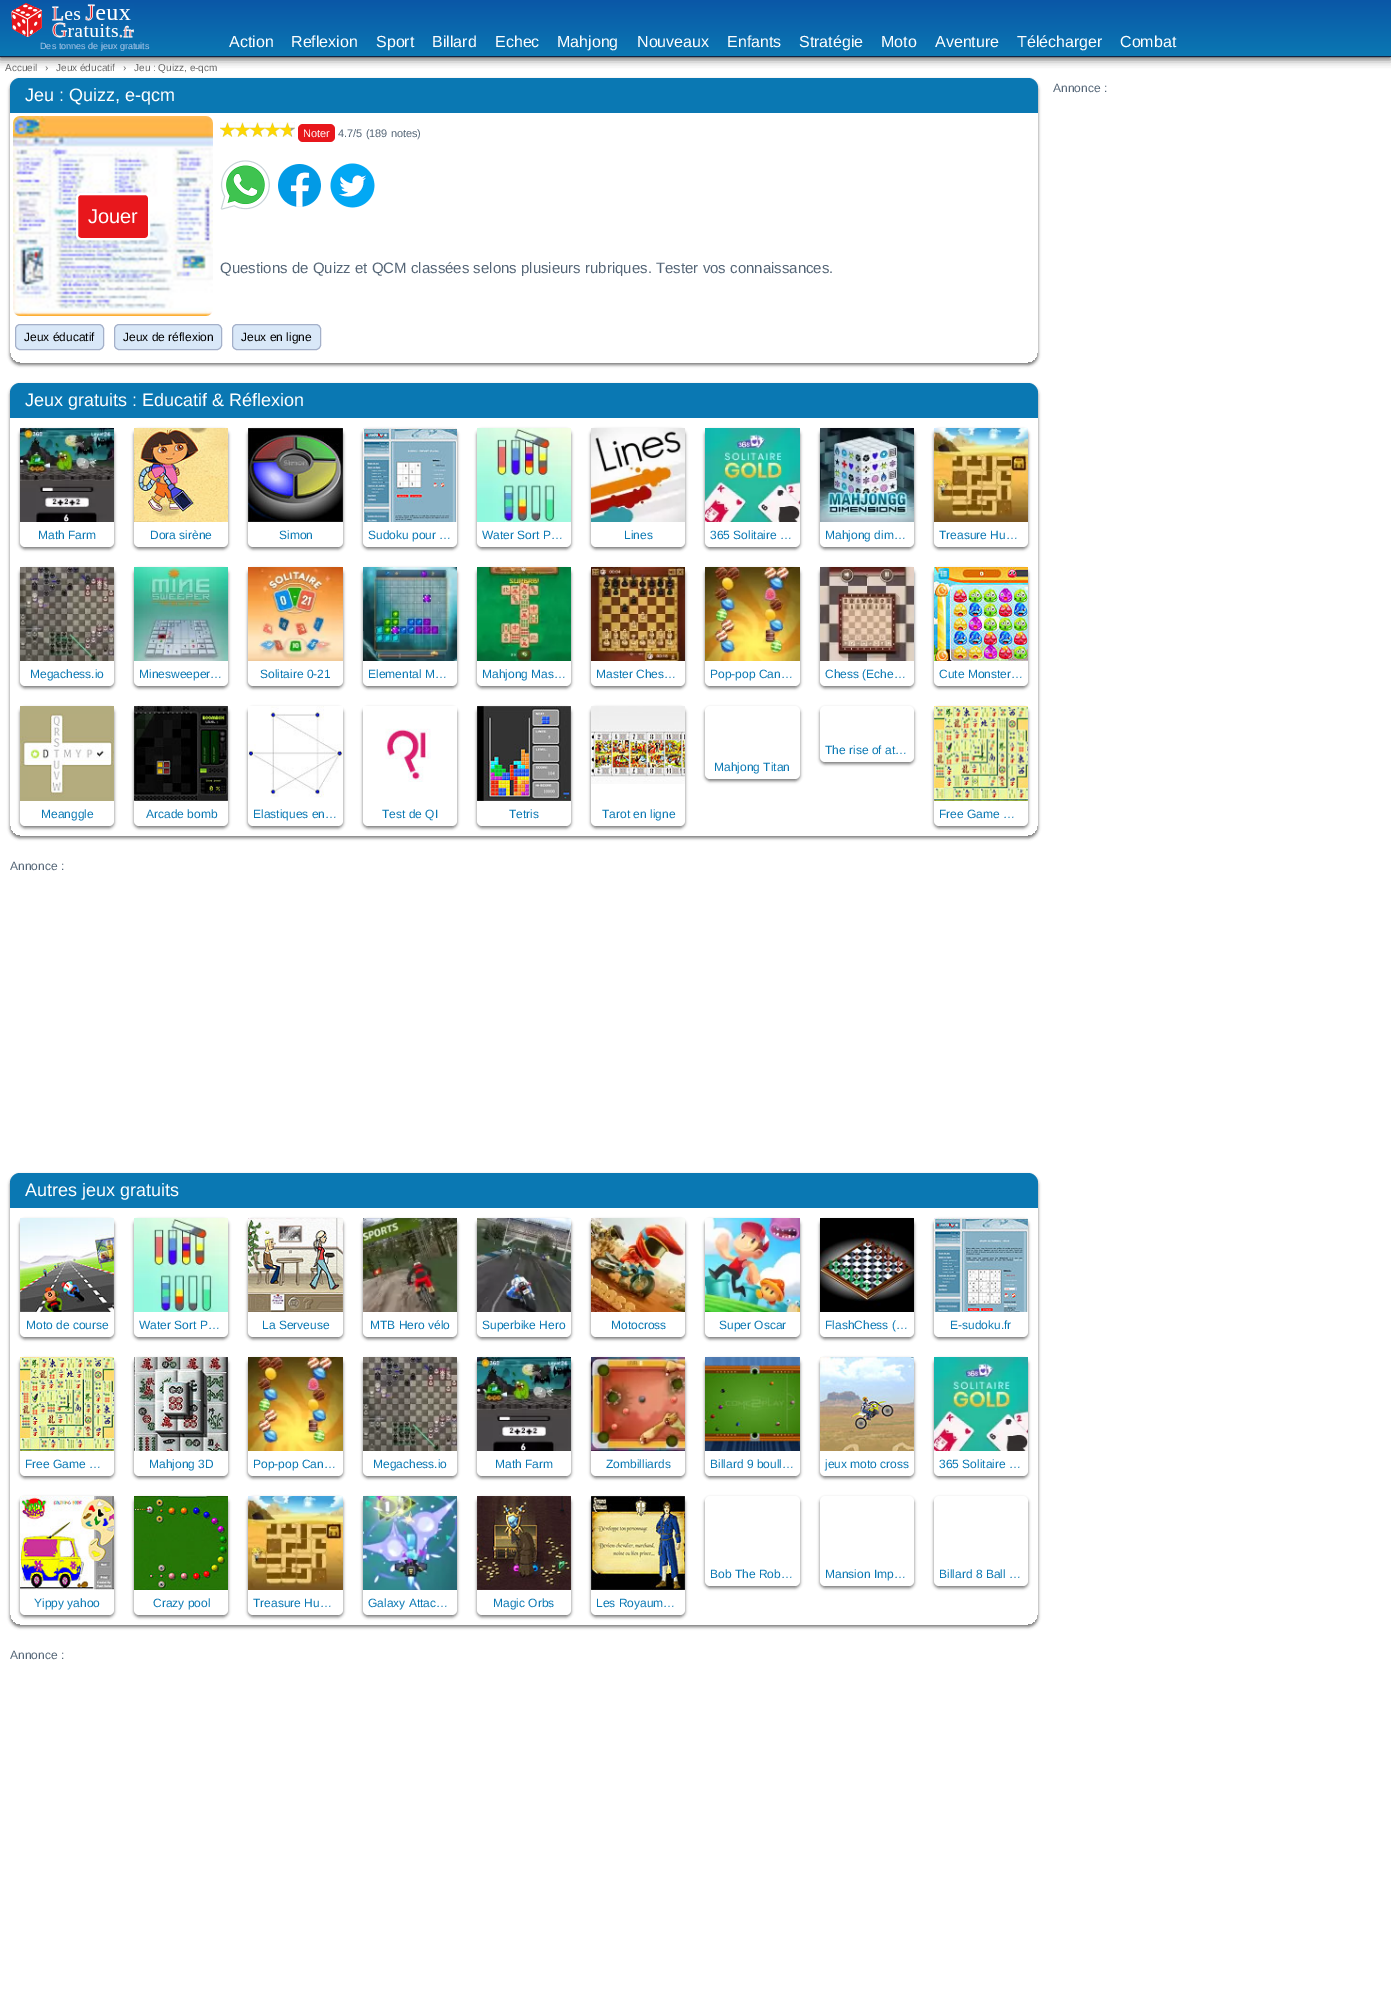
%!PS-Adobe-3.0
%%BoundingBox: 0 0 1391 2011
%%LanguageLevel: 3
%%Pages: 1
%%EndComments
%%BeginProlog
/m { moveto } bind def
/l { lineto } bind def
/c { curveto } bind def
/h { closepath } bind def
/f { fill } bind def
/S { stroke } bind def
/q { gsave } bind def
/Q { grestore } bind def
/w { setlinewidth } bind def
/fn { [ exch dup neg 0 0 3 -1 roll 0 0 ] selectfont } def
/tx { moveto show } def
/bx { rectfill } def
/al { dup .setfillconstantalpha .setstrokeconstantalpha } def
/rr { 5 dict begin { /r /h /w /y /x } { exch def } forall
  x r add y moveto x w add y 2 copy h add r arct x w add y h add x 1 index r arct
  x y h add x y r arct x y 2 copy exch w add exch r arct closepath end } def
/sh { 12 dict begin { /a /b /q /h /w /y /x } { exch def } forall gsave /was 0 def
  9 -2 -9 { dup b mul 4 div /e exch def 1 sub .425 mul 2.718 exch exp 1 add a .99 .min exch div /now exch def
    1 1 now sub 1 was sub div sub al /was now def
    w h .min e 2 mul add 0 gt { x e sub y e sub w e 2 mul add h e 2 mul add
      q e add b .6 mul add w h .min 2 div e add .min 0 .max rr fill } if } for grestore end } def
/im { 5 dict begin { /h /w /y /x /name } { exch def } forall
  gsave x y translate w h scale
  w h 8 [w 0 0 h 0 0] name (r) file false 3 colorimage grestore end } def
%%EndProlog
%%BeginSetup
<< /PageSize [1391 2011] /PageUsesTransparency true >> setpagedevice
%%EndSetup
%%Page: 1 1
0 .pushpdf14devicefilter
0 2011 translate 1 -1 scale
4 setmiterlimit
1 setgray
0 0 1391 2011 bx
0 setgray
0 0 1391 57 0 5 1 sh
q 0 0 m 1391 0 l 1391 56 l 0 56 l h clip newpath
<< /ShadingType 2 /ColorSpace /DeviceRGB /Coords [696 0 696 56] /Extend [true true] /Function << /FunctionType 2 /Domain [0 1] /C0 [0.039 0.341 0.655] /C1 [0.039 0.471 0.702] /N 1 >> >> shfill Q
0.063 0.141 0.267 setrgbcolor
0 56 1391 1 bx
(image0.raw) 11 3 123 35 im
/LiberationSans-Regular 9 fn
0.686 0.784 0.914 setrgbcolor
(Des tonnes de jeux gratuits) 40 49 tx
/LiberationSans-Regular 16 fn
1 setgray
(Action) 229 47 tx
(Reflexion) 291 47 tx
(Sport) 376 47 tx
(Billard) 432 47 tx
(Echec) 495 47 tx
(Mahjong) 557 47 tx
(Nouveaux) 637 47 tx
(Enfants) 727 47 tx
(Stratégie) 799 47 tx
(Moto) 881 47 tx
(Aventure) 935 47 tx
(Télécharger) 1017 47 tx
(Combat) 1120 47 tx
/LiberationSans-Regular 10 fn
0.4 setgray
(Accueil) 5 71 tx
(›) 45 71 tx
(Jeux éducatif) 56 71 tx
(›) 123 71 tx
(Jeu : Quizz, e-qcm) 134 71 tx
q
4 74 m 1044 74 l 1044 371 l 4 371 l h 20 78 m 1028 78 l 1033.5 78 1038 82.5 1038 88 c 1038 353 l 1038 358.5 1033.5 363 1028 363 c 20 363 l 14.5 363 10 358.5 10 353 c 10 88 l 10 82.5 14.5 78 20 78 c h eoclip newpath
0 setgray
10 80 1028 285 10 1.5 0.5 sh
Q
0.039 0.471 0.702 setrgbcolor
20 78 m 1028 78 l 1033.5 78 1038 82.5 1038 88 c 1038 113 l 10 113 l 10 88 l 10 82.5 14.5 78 20 78 c h f
/LiberationSans-Regular 18 fn
1 setgray
(Jeu : Quizz, e-qcm) 25 101 tx
0.6 setgray
291 122 4 15 bx
1 0.843 0 setrgbcolor
220 122 71 15 bx
(image1.raw) 220 122 15 15 im
(image1.raw) 235 122 15 15 im
(image2.raw) 250 122 15 15 im
(image2.raw) 265 122 15 15 im
(image3.raw) 280 122 15 15 im
0.91 0.09 0.11 setrgbcolor
298 124 37 18 5 rr f
/LiberationSans-Regular 11 fn
1 setgray
(Noter) 303 137 tx
0.333 0.4 0.467 setrgbcolor
(4.7/5 \(189 notes\)) 338 137 tx
(image4.raw) 220 160 50 50 im
(image5.raw) 278 164 43 43 im
(image6.raw) 330 163 45 45 im
(image7.raw) 13 116 200 200 im
0.91 0.09 0.11 setrgbcolor
77 194 72 45 4 rr q f Q
1 setgray
2 w
S
/LiberationSans-Regular 20 fn
(Jouer) 88 223 tx
/LiberationSans-Regular 15 fn
0.333 0.4 0.467 setrgbcolor
(Questions de Quizz et QCM classées selons plusieurs rubriques. Tester vos connaissances.) 220 273 tx
0.851 0.91 0.973 setrgbcolor
15.5 324.5 88 25 4.5 rr q f Q
0.643 0.69 0.788 setrgbcolor
1 w
S
/LiberationSans-Regular 12 fn
0 setgray
(Jeux éducatif) 24 341 tx
0.851 0.91 0.973 setrgbcolor
114.5 324.5 107 25 4.5 rr q f Q
0.643 0.69 0.788 setrgbcolor
S
0 setgray
(Jeux de réflexion) 123 341 tx
0.851 0.91 0.973 setrgbcolor
232.5 324.5 88 25 4.5 rr q f Q
0.643 0.69 0.788 setrgbcolor
S
0 setgray
(Jeux en ligne) 241 341 tx
0.333 0.4 0.467 setrgbcolor
(Annonce :) 1053 92 tx
q
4 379 m 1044 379 l 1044 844 l 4 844 l h 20 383 m 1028 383 l 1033.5 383 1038 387.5 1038 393 c 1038 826 l 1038 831.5 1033.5 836 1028 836 c 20 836 l 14.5 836 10 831.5 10 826 c 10 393 l 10 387.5 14.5 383 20 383 c h eoclip newpath
0 setgray
10 385 1028 453 10 1.5 0.5 sh
Q
0.039 0.471 0.702 setrgbcolor
20 383 m 1028 383 l 1033.5 383 1038 387.5 1038 393 c 1038 418 l 10 418 l 10 393 l 10 387.5 14.5 383 20 383 c h f
/LiberationSans-Regular 18 fn
1 setgray
(Jeux gratuits : Educatif & Réflexion) 25 406 tx
0 setgray
20 430 94 119 5 1.5 0.5 sh
1 setgray
20 428 94 119 5 rr f
(image8.raw) 20 428 94 94 im
/LiberationSans-Regular 12 fn
0.039 0.471 0.702 setrgbcolor
(Math Farm) 38 539 tx
0 setgray
134 430 94 119 5 1.5 0.5 sh
1 setgray
134 428 94 119 5 rr f
(image9.raw) 134 428 94 94 im
0.039 0.471 0.702 setrgbcolor
(Dora sirène) 150 539 tx
0 setgray
248 430 95 119 5 1.5 0.5 sh
1 setgray
248 428 95 119 5 rr f
(image10.raw) 248 428 95 94 im
0.039 0.471 0.702 setrgbcolor
(Simon) 279 539 tx
0 setgray
363 430 94 119 5 1.5 0.5 sh
1 setgray
363 428 94 119 5 rr f
(image11.raw) 363 428 94 94 im
0.039 0.471 0.702 setrgbcolor
(Sudoku pour …) 368 539 tx
0 setgray
477 430 94 119 5 1.5 0.5 sh
1 setgray
477 428 94 119 5 rr f
(image12.raw) 477 428 94 94 im
0.039 0.471 0.702 setrgbcolor
(Water Sort P…) 482 539 tx
0 setgray
591 430 94 119 5 1.5 0.5 sh
1 setgray
591 428 94 119 5 rr f
(image13.raw) 591 428 94 94 im
0.039 0.471 0.702 setrgbcolor
(Lines) 624 539 tx
0 setgray
705 430 95 119 5 1.5 0.5 sh
1 setgray
705 428 95 119 5 rr f
(image14.raw) 705 428 95 94 im
0.039 0.471 0.702 setrgbcolor
(365 Solitaire …) 710 539 tx
0 setgray
820 430 94 119 5 1.5 0.5 sh
1 setgray
820 428 94 119 5 rr f
(image15.raw) 820 428 94 94 im
0.039 0.471 0.702 setrgbcolor
(Mahjong dim…) 825 539 tx
0 setgray
934 430 94 119 5 1.5 0.5 sh
1 setgray
934 428 94 119 5 rr f
(image16.raw) 934 428 94 94 im
0.039 0.471 0.702 setrgbcolor
(Treasure Hu…) 939 539 tx
0 setgray
20 569 94 119 5 1.5 0.5 sh
1 setgray
20 567 94 119 5 rr f
(image17.raw) 20 567 94 94 im
0.039 0.471 0.702 setrgbcolor
(Megachess.io) 30 678 tx
0 setgray
134 569 94 119 5 1.5 0.5 sh
1 setgray
134 567 94 119 5 rr f
(image18.raw) 134 567 94 94 im
0.039 0.471 0.702 setrgbcolor
(Minesweeper…) 139 678 tx
0 setgray
248 569 95 119 5 1.5 0.5 sh
1 setgray
248 567 95 119 5 rr f
(image19.raw) 248 567 95 94 im
0.039 0.471 0.702 setrgbcolor
(Solitaire 0-21) 260 678 tx
0 setgray
363 569 94 119 5 1.5 0.5 sh
1 setgray
363 567 94 119 5 rr f
(image20.raw) 363 567 94 94 im
0.039 0.471 0.702 setrgbcolor
(Elemental M…) 368 678 tx
0 setgray
477 569 94 119 5 1.5 0.5 sh
1 setgray
477 567 94 119 5 rr f
(image21.raw) 477 567 94 94 im
0.039 0.471 0.702 setrgbcolor
(Mahjong Mas…) 482 678 tx
0 setgray
591 569 94 119 5 1.5 0.5 sh
1 setgray
591 567 94 119 5 rr f
(image22.raw) 591 567 94 94 im
0.039 0.471 0.702 setrgbcolor
(Master Ches…) 596 678 tx
0 setgray
705 569 95 119 5 1.5 0.5 sh
1 setgray
705 567 95 119 5 rr f
(image23.raw) 705 567 95 94 im
0.039 0.471 0.702 setrgbcolor
(Pop-pop Can…) 710 678 tx
0 setgray
820 569 94 119 5 1.5 0.5 sh
1 setgray
820 567 94 119 5 rr f
(image24.raw) 820 567 94 94 im
0.039 0.471 0.702 setrgbcolor
(Chess \(Eche…) 825 678 tx
0 setgray
934 569 94 119 5 1.5 0.5 sh
1 setgray
934 567 94 119 5 rr f
(image25.raw) 934 567 94 94 im
0.039 0.471 0.702 setrgbcolor
(Cute Monster…) 939 678 tx
0 setgray
820 708 94 56 5 1.5 0.5 sh
1 setgray
820 706 94 56 5 rr f
0.039 0.471 0.702 setrgbcolor
(The rise of at…) 825 754 tx
0 setgray
705 708 95 73 5 1.5 0.5 sh
1 setgray
705 706 95 73 5 rr f
0.039 0.471 0.702 setrgbcolor
(Mahjong Titan) 714 771 tx
0 setgray
20 708 94 120 5 1.5 0.5 sh
1 setgray
20 706 94 120 5 rr f
(image26.raw) 20 706 94 95 im
0.039 0.471 0.702 setrgbcolor
(Meanggle) 41 818 tx
0 setgray
134 708 94 120 5 1.5 0.5 sh
1 setgray
134 706 94 120 5 rr f
(image27.raw) 134 706 94 95 im
0.039 0.471 0.702 setrgbcolor
(Arcade bomb) 146 818 tx
0 setgray
248 708 95 120 5 1.5 0.5 sh
1 setgray
248 706 95 120 5 rr f
(image28.raw) 248 706 95 92 im
0.039 0.471 0.702 setrgbcolor
(Elastiques en…) 253 818 tx
0 setgray
363 708 94 120 5 1.5 0.5 sh
1 setgray
363 706 94 120 5 rr f
(image29.raw) 363 706 94 76 im
0.039 0.471 0.702 setrgbcolor
(Test de QI) 382 818 tx
0 setgray
477 708 94 120 5 1.5 0.5 sh
1 setgray
477 706 94 120 5 rr f
(image30.raw) 477 706 94 95 im
0.039 0.471 0.702 setrgbcolor
(Tetris) 509 818 tx
0 setgray
591 708 94 120 5 1.5 0.5 sh
1 setgray
591 706 94 120 5 rr f
(image31.raw) 591 706 94 78 im
0.039 0.471 0.702 setrgbcolor
(Tarot en ligne) 602 818 tx
0 setgray
934 708 94 120 5 1.5 0.5 sh
1 setgray
934 706 94 120 5 rr f
(image32.raw) 934 706 94 95 im
0.039 0.471 0.702 setrgbcolor
(Free Game …) 939 818 tx
0.333 0.4 0.467 setrgbcolor
(Annonce :) 10 870 tx
q
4 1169 m 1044 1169 l 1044 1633 l 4 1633 l h 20 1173 m 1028 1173 l 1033.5 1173 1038 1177.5 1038 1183 c 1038 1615 l 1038 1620.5 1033.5 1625 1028 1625 c 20 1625 l 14.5 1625 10 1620.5 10 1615 c 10 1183 l 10 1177.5 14.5 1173 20 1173 c h eoclip newpath
0 setgray
10 1175 1028 452 10 1.5 0.5 sh
Q
0.039 0.471 0.702 setrgbcolor
20 1173 m 1028 1173 l 1033.5 1173 1038 1177.5 1038 1183 c 1038 1208 l 10 1208 l 10 1183 l 10 1177.5 14.5 1173 20 1173 c h f
/LiberationSans-Regular 18 fn
1 setgray
(Autres jeux gratuits) 25 1196 tx
0 setgray
20 1220 94 119 5 1.5 0.5 sh
1 setgray
20 1218 94 119 5 rr f
(image33.raw) 20 1218 94 94 im
/LiberationSans-Regular 12 fn
0.039 0.471 0.702 setrgbcolor
(Moto de course) 26 1329 tx
0 setgray
134 1220 94 119 5 1.5 0.5 sh
1 setgray
134 1218 94 119 5 rr f
(image34.raw) 134 1218 94 94 im
0.039 0.471 0.702 setrgbcolor
(Water Sort P…) 139 1329 tx
0 setgray
248 1220 95 119 5 1.5 0.5 sh
1 setgray
248 1218 95 119 5 rr f
(image35.raw) 248 1218 95 94 im
0.039 0.471 0.702 setrgbcolor
(La Serveuse) 262 1329 tx
0 setgray
363 1220 94 119 5 1.5 0.5 sh
1 setgray
363 1218 94 119 5 rr f
(image36.raw) 363 1218 94 94 im
0.039 0.471 0.702 setrgbcolor
(MTB Hero vélo) 370 1329 tx
0 setgray
477 1220 94 119 5 1.5 0.5 sh
1 setgray
477 1218 94 119 5 rr f
(image37.raw) 477 1218 94 94 im
0.039 0.471 0.702 setrgbcolor
(Superbike Hero) 482 1329 tx
0 setgray
591 1220 94 119 5 1.5 0.5 sh
1 setgray
591 1218 94 119 5 rr f
(image38.raw) 591 1218 94 94 im
0.039 0.471 0.702 setrgbcolor
(Motocross) 611 1329 tx
0 setgray
705 1220 95 119 5 1.5 0.5 sh
1 setgray
705 1218 95 119 5 rr f
(image39.raw) 705 1218 95 94 im
0.039 0.471 0.702 setrgbcolor
(Super Oscar) 719 1329 tx
0 setgray
820 1220 94 119 5 1.5 0.5 sh
1 setgray
820 1218 94 119 5 rr f
(image40.raw) 820 1218 94 94 im
0.039 0.471 0.702 setrgbcolor
(FlashChess \(…) 825 1329 tx
0 setgray
934 1220 94 119 5 1.5 0.5 sh
1 setgray
934 1218 94 119 5 rr f
(image41.raw) 934 1218 94 94 im
0.039 0.471 0.702 setrgbcolor
(E-sudoku.fr) 950 1329 tx
0 setgray
20 1359 94 119 5 1.5 0.5 sh
1 setgray
20 1357 94 119 5 rr f
(image42.raw) 20 1357 94 94 im
0.039 0.471 0.702 setrgbcolor
(Free Game …) 25 1468 tx
0 setgray
134 1359 94 119 5 1.5 0.5 sh
1 setgray
134 1357 94 119 5 rr f
(image43.raw) 134 1357 94 94 im
0.039 0.471 0.702 setrgbcolor
(Mahjong 3D) 149 1468 tx
0 setgray
248 1359 95 119 5 1.5 0.5 sh
1 setgray
248 1357 95 119 5 rr f
(image44.raw) 248 1357 95 94 im
0.039 0.471 0.702 setrgbcolor
(Pop-pop Can…) 253 1468 tx
0 setgray
363 1359 94 119 5 1.5 0.5 sh
1 setgray
363 1357 94 119 5 rr f
(image45.raw) 363 1357 94 94 im
0.039 0.471 0.702 setrgbcolor
(Megachess.io) 373 1468 tx
0 setgray
477 1359 94 119 5 1.5 0.5 sh
1 setgray
477 1357 94 119 5 rr f
(image46.raw) 477 1357 94 94 im
0.039 0.471 0.702 setrgbcolor
(Math Farm) 495 1468 tx
0 setgray
591 1359 94 119 5 1.5 0.5 sh
1 setgray
591 1357 94 119 5 rr f
(image47.raw) 591 1357 94 94 im
0.039 0.471 0.702 setrgbcolor
(Zombilliards) 606 1468 tx
0 setgray
705 1359 95 119 5 1.5 0.5 sh
1 setgray
705 1357 95 119 5 rr f
(image48.raw) 705 1357 95 94 im
0.039 0.471 0.702 setrgbcolor
(Billard 9 boull…) 710 1468 tx
0 setgray
820 1359 94 119 5 1.5 0.5 sh
1 setgray
820 1357 94 119 5 rr f
(image49.raw) 820 1357 94 94 im
0.039 0.471 0.702 setrgbcolor
(jeux moto cross) 825 1468 tx
0 setgray
934 1359 94 119 5 1.5 0.5 sh
1 setgray
934 1357 94 119 5 rr f
(image50.raw) 934 1357 94 94 im
0.039 0.471 0.702 setrgbcolor
(365 Solitaire …) 939 1468 tx
0 setgray
705 1498 95 90 5 1.5 0.5 sh
1 setgray
705 1496 95 90 5 rr f
0.039 0.471 0.702 setrgbcolor
(Bob The Rob…) 710 1578 tx
0 setgray
820 1498 94 90 5 1.5 0.5 sh
1 setgray
820 1496 94 90 5 rr f
0.039 0.471 0.702 setrgbcolor
(Mansion Imp…) 825 1578 tx
0 setgray
934 1498 94 90 5 1.5 0.5 sh
1 setgray
934 1496 94 90 5 rr f
0.039 0.471 0.702 setrgbcolor
(Billard 8 Ball …) 939 1578 tx
0 setgray
20 1498 94 119 5 1.5 0.5 sh
1 setgray
20 1496 94 119 5 rr f
(image51.raw) 20 1496 94 94 im
0.039 0.471 0.702 setrgbcolor
(Yippy yahoo) 34 1607 tx
0 setgray
134 1498 94 119 5 1.5 0.5 sh
1 setgray
134 1496 94 119 5 rr f
(image52.raw) 134 1496 94 94 im
0.039 0.471 0.702 setrgbcolor
(Crazy pool) 153 1607 tx
0 setgray
248 1498 95 119 5 1.5 0.5 sh
1 setgray
248 1496 95 119 5 rr f
(image53.raw) 248 1496 95 94 im
0.039 0.471 0.702 setrgbcolor
(Treasure Hu…) 253 1607 tx
0 setgray
363 1498 94 119 5 1.5 0.5 sh
1 setgray
363 1496 94 119 5 rr f
(image54.raw) 363 1496 94 94 im
0.039 0.471 0.702 setrgbcolor
(Galaxy Attac…) 368 1607 tx
0 setgray
477 1498 94 119 5 1.5 0.5 sh
1 setgray
477 1496 94 119 5 rr f
(image55.raw) 477 1496 94 94 im
0.039 0.471 0.702 setrgbcolor
(Magic Orbs) 493 1607 tx
0 setgray
591 1498 94 119 5 1.5 0.5 sh
1 setgray
591 1496 94 119 5 rr f
(image56.raw) 591 1496 94 94 im
0.039 0.471 0.702 setrgbcolor
(Les Royaum…) 596 1607 tx
0.333 0.4 0.467 setrgbcolor
(Annonce :) 10 1659 tx
.poppdf14devicefilter showpage
%%EOF
